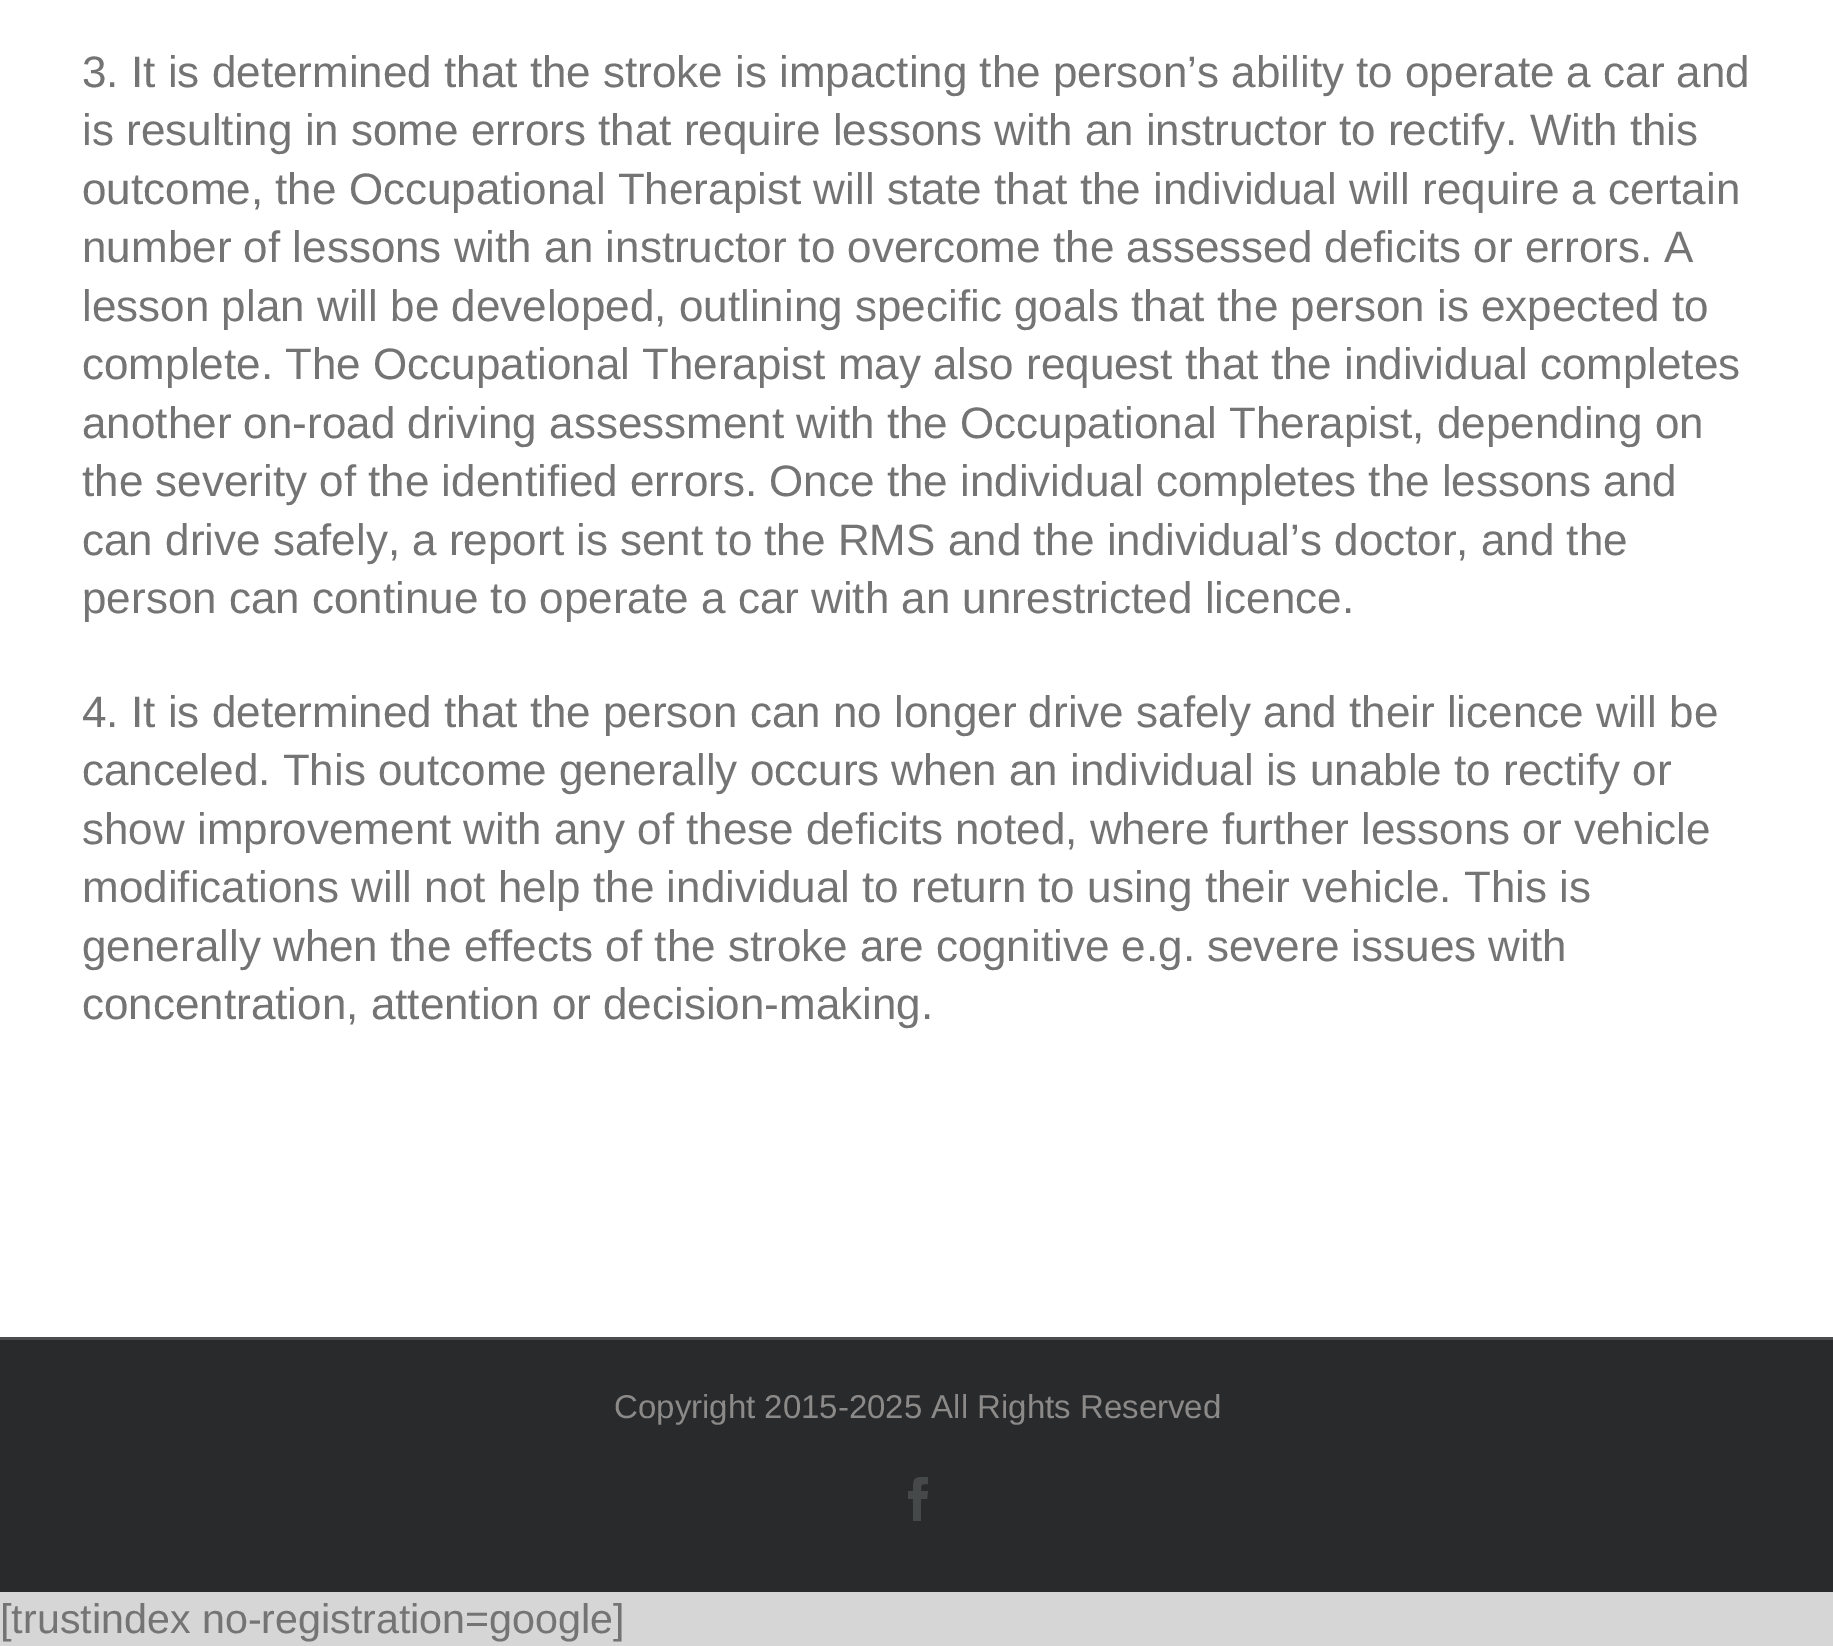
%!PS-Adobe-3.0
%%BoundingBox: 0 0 1833 1646
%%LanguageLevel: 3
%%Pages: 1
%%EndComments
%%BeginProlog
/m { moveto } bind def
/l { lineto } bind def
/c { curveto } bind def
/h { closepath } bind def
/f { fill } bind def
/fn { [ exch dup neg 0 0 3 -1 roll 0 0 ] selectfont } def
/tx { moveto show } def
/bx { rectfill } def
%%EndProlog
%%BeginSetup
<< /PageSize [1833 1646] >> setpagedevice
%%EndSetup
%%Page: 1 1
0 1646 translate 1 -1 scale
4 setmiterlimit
0.843 0.839 0.839 setrgbcolor
0 0 1833 1646 bx
1 setgray
0 0 1833 1337 bx
/LiberationSans-Regular 44 fn
0.455 setgray
(3. It is determined that the stroke is impacting the person’s ability to operate a car and) 82 87 tx
(is resulting in some errors that require lessons with an instructor to rectify. With this) 82 145 tx
(outcome, the Occupational Therapist will state that the individual will require a certain) 82 204 tx
(number of lessons with an instructor to overcome the assessed deficits or errors. A) 82 262 tx
(lesson plan will be developed, outlining specific goals that the person is expected to) 82 321 tx
(complete. The Occupational Therapist may also request that the individual completes) 82 379 tx
(another on-road driving assessment with the Occupational Therapist, depending on) 82 438 tx
(the severity of the identified errors. Once the individual completes the lessons and) 82 496 tx
(can drive safely, a report is sent to the RMS and the individual’s doctor, and the) 82 555 tx
(person can continue to operate a car with an unrestricted licence.) 82 613 tx
(4. It is determined that the person can no longer drive safely and their licence will be) 82 727 tx
(canceled. This outcome generally occurs when an individual is unable to rectify or) 82 785 tx
(show improvement with any of these deficits noted, where further lessons or vehicle) 82 844 tx
(modifications will not help the individual to return to using their vehicle. This is) 82 902 tx
(generally when the effects of the stroke are cognitive e.g. severe issues with) 82 961 tx
(concentration, attention or decision-making.) 82 1019 tx
0.157 0.165 0.169 setrgbcolor
0 1340 1833 252 bx
0.294 0.298 0.302 setrgbcolor
0 1337 1833 3 bx
/LiberationSans-Regular 33 fn
0.549 0.537 0.537 setrgbcolor
(Copyright 2015-2025 All Rights Reserved) 614 1418 tx
0.275 0.286 0.29 setrgbcolor
921 1521 m 913 1521 l 913 1499 l 908 1499 l 908 1491 l 913 1491 l 913 1477 914 1477 928 1477 c 928 1484 l 921 1484 921 1484 921 1491 c 928 1491 l 927 1499 l 921 1499 l h f
/LiberationSans-Regular 41.25 fn
0.455 setgray
([trustindex no-registration=google]) 0 1633 tx
showpage
%%EOF
